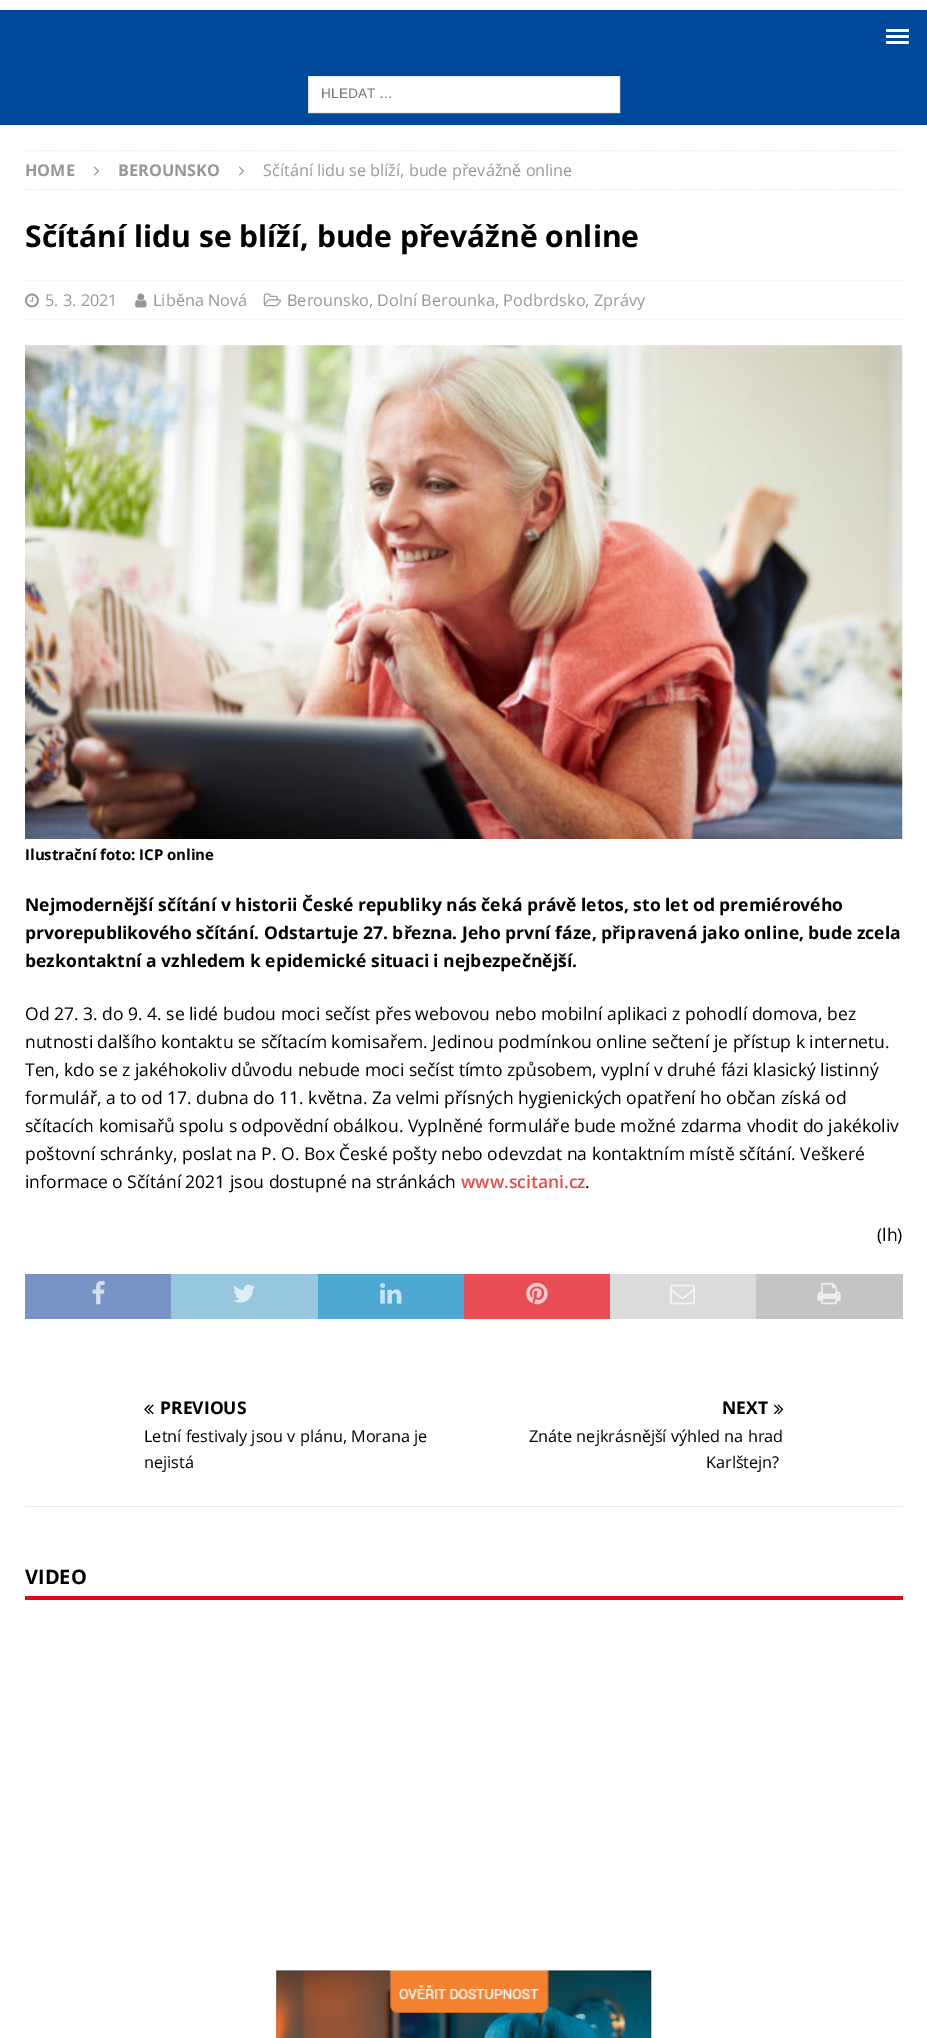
%!PS-Adobe-3.0
%%BoundingBox: 0 0 927 2038
%%LanguageLevel: 3
%%Pages: 1
%%EndComments
%%BeginProlog
/m { moveto } bind def
/l { lineto } bind def
/h { closepath } bind def
/f { fill } bind def
/S { stroke } bind def
/q { gsave } bind def
/Q { grestore } bind def
/w { setlinewidth } bind def
/fn { [ exch dup neg 0 0 3 -1 roll 0 0 ] selectfont } def
/tx { moveto show } def
/bx { rectfill } def
/rr { 5 dict begin { /r /h /w /y /x } { exch def } forall
  x r add y moveto x w add y 2 copy h add r arct x w add y h add x 1 index r arct
  x y h add x y r arct x y 2 copy exch w add exch r arct closepath end } def
/im { 5 dict begin { /h /w /y /x /name } { exch def } forall
  gsave x y translate w h scale
  w h 8 [w 0 0 h 0 0] name (r) file false 3 colorimage grestore end } def
%%EndProlog
%%BeginSetup
<< /PageSize [927 2038] >> setpagedevice
%%EndSetup
%%Page: 1 1
0 2038 translate 1 -1 scale
4 setmiterlimit
1 setgray
0 0 927 2038 bx
0 0.282 0.6 setrgbcolor
0 10 927 115 bx
1 setgray
886 29 23 3 1.5 rr f
886 35 23 3 1.5 rr f
886 41 23 3 1.5 rr f
308.5 76.5 m 619.5 76.5 l 619.5 112.5 l 308.5 112.5 l h q f Q
0.922 setgray
S
/LiberationSans-Regular 13.75 fn
0.459 setgray
(HLEDAT …) 321 98 tx
q
25 150 878 1389 rectclip
0.922 setgray
1.2 w
[1.25 1.25] 0 setdash
25 150.5 m 902.5 150.5 l S
Q
0.922 setgray
1.2 w
[1.25 1.25] 0 setdash
25 189.5 m 902.5 189.5 l S
/OpenSans-Bold 16.25 fn
0.592 setgray
(HOME) 25 176 tx
(image0.raw) 93 166 6 10 im
(BEROUNSKO) 118 176 tx
(image0.raw) 238 166 6 10 im
/OpenSans-Regular 16.25 fn
(Sčítání lidu se blíží, bude převážně online) 263 176 tx
/OpenSans-Bold 30 fn
0 setgray
(Sčítání lidu se blíží, bude převážně online) 25 247 tx
0.922 setgray
25 280.5 m 902.5 280.5 l S
25 319.5 m 902.5 319.5 l S
(image1.raw) 25 293 14 15 im
/OpenSans-Regular 16.25 fn
0.592 setgray
(5. 3. 2021) 45 306 tx
(image2.raw) 135 293 12 15 im
(Liběna Nová) 153 306 tx
(image3.raw) 263 293 18 14 im
(Berounsko, Dolní Berounka, Podbrdsko, Zprávy) 287 306 tx
(image4.raw) 25 345 878 494 im
/OpenSans-Bold 15 fn
0 setgray
(Ilustrační foto: ICP online) 25 860 tx
/OpenSans-Bold 17.5 fn
(Nejmodernější sčítání v historii České republiky nás čeká právě letos, sto let od premiérového) 25 911 tx
(prvorepublikového sčítání. Odstartuje 27. března. Jeho první fáze, připravená jako online, bude zcela) 25 939 tx
(bezkontaktní a vzhledem k epidemické situaci i nejbezpečnější.) 25 967 tx
/OpenSans-Regular 17.5 fn
(Od 27. 3. do 9. 4. se lidé budou moci sečíst přes webovou nebo mobilní aplikaci z pohodlí domova, bez) 25 1020 tx
(nutnosti dalšího kontaktu se sčítacím komisařem. Jedinou podmínkou online sečtení je přístup k internetu.) 25 1048 tx
(Ten, kdo se z jakéhokoliv důvodu nebude moci sečíst tímto způsobem, vyplní v druhé fázi klasický listinný) 25 1076 tx
(formulář, a to od 17. dubna do 11. května. Za velmi přísných hygienických opatření ho občan získá od) 25 1104 tx
(sčítacích komisařů spolu s odpovědní obálkou. Vyplněné formuláře bude možné zdarma vhodit do jakékoliv) 25 1132 tx
(poštovní schránky, poslat na P. O. Box České pošty nebo odevzdat na kontaktním místě sčítání. Veškeré) 25 1160 tx
(informace o Sčítání 2021 jsou dostupné na stránkách) 25 1188 tx
/OpenSans-SemiBold 17.5 fn
0.902 0.286 0.275 setrgbcolor
(www.scitani.cz) 461 1188 tx
/OpenSans-Regular 17.5 fn
0 setgray
(.) 585 1188 tx
(\(lh\)) 877 1241 tx
0.471 0.576 0.776 setrgbcolor
25 1274 146 45 bx
(image5.raw) 92 1281 13 24 im
0.592 0.776 0.875 setrgbcolor
171 1274 147 45 bx
(image6.raw) 233 1284 22 19 im
0.302 0.663 0.824 setrgbcolor
318 1274 146 45 bx
(image7.raw) 380 1283 22 21 im
0.91 0.302 0.337 setrgbcolor
464 1274 146 45 bx
(image8.raw) 526 1282 22 23 im
0.859 setgray
610 1274 146 45 bx
(image9.raw) 670 1284 25 21 im
0.769 setgray
756 1274 147 45 bx
(image10.raw) 817 1282 24 23 im
0.922 setgray
25 1506 878 1 bx
(image11.raw) 144 1404 10 11 im
/OpenSans-Bold 17.5 fn
0 setgray
(PREVIOUS) 160 1414 tx
/OpenSans-Regular 16.25 fn
(Letní festivaly jsou v plánu, Morana je) 144 1442 tx
(nejistá) 144 1468 tx
/OpenSans-Bold 17.5 fn
(NEXT) 722 1414 tx
(image12.raw) 773 1404 11 11 im
/OpenSans-Regular 16.25 fn
(Znáte nejkrásnější výhled na hrad) 529 1442 tx
(Karlštejn?) 706 1468 tx
0.89 0.024 0.082 setrgbcolor
25 1596 878 4 bx
/OpenSans-Bold 20 fn
0 setgray
(VIDEO) 25 1584 tx
(image13.raw) 276 1970 376 68 im
showpage
%%EOF
